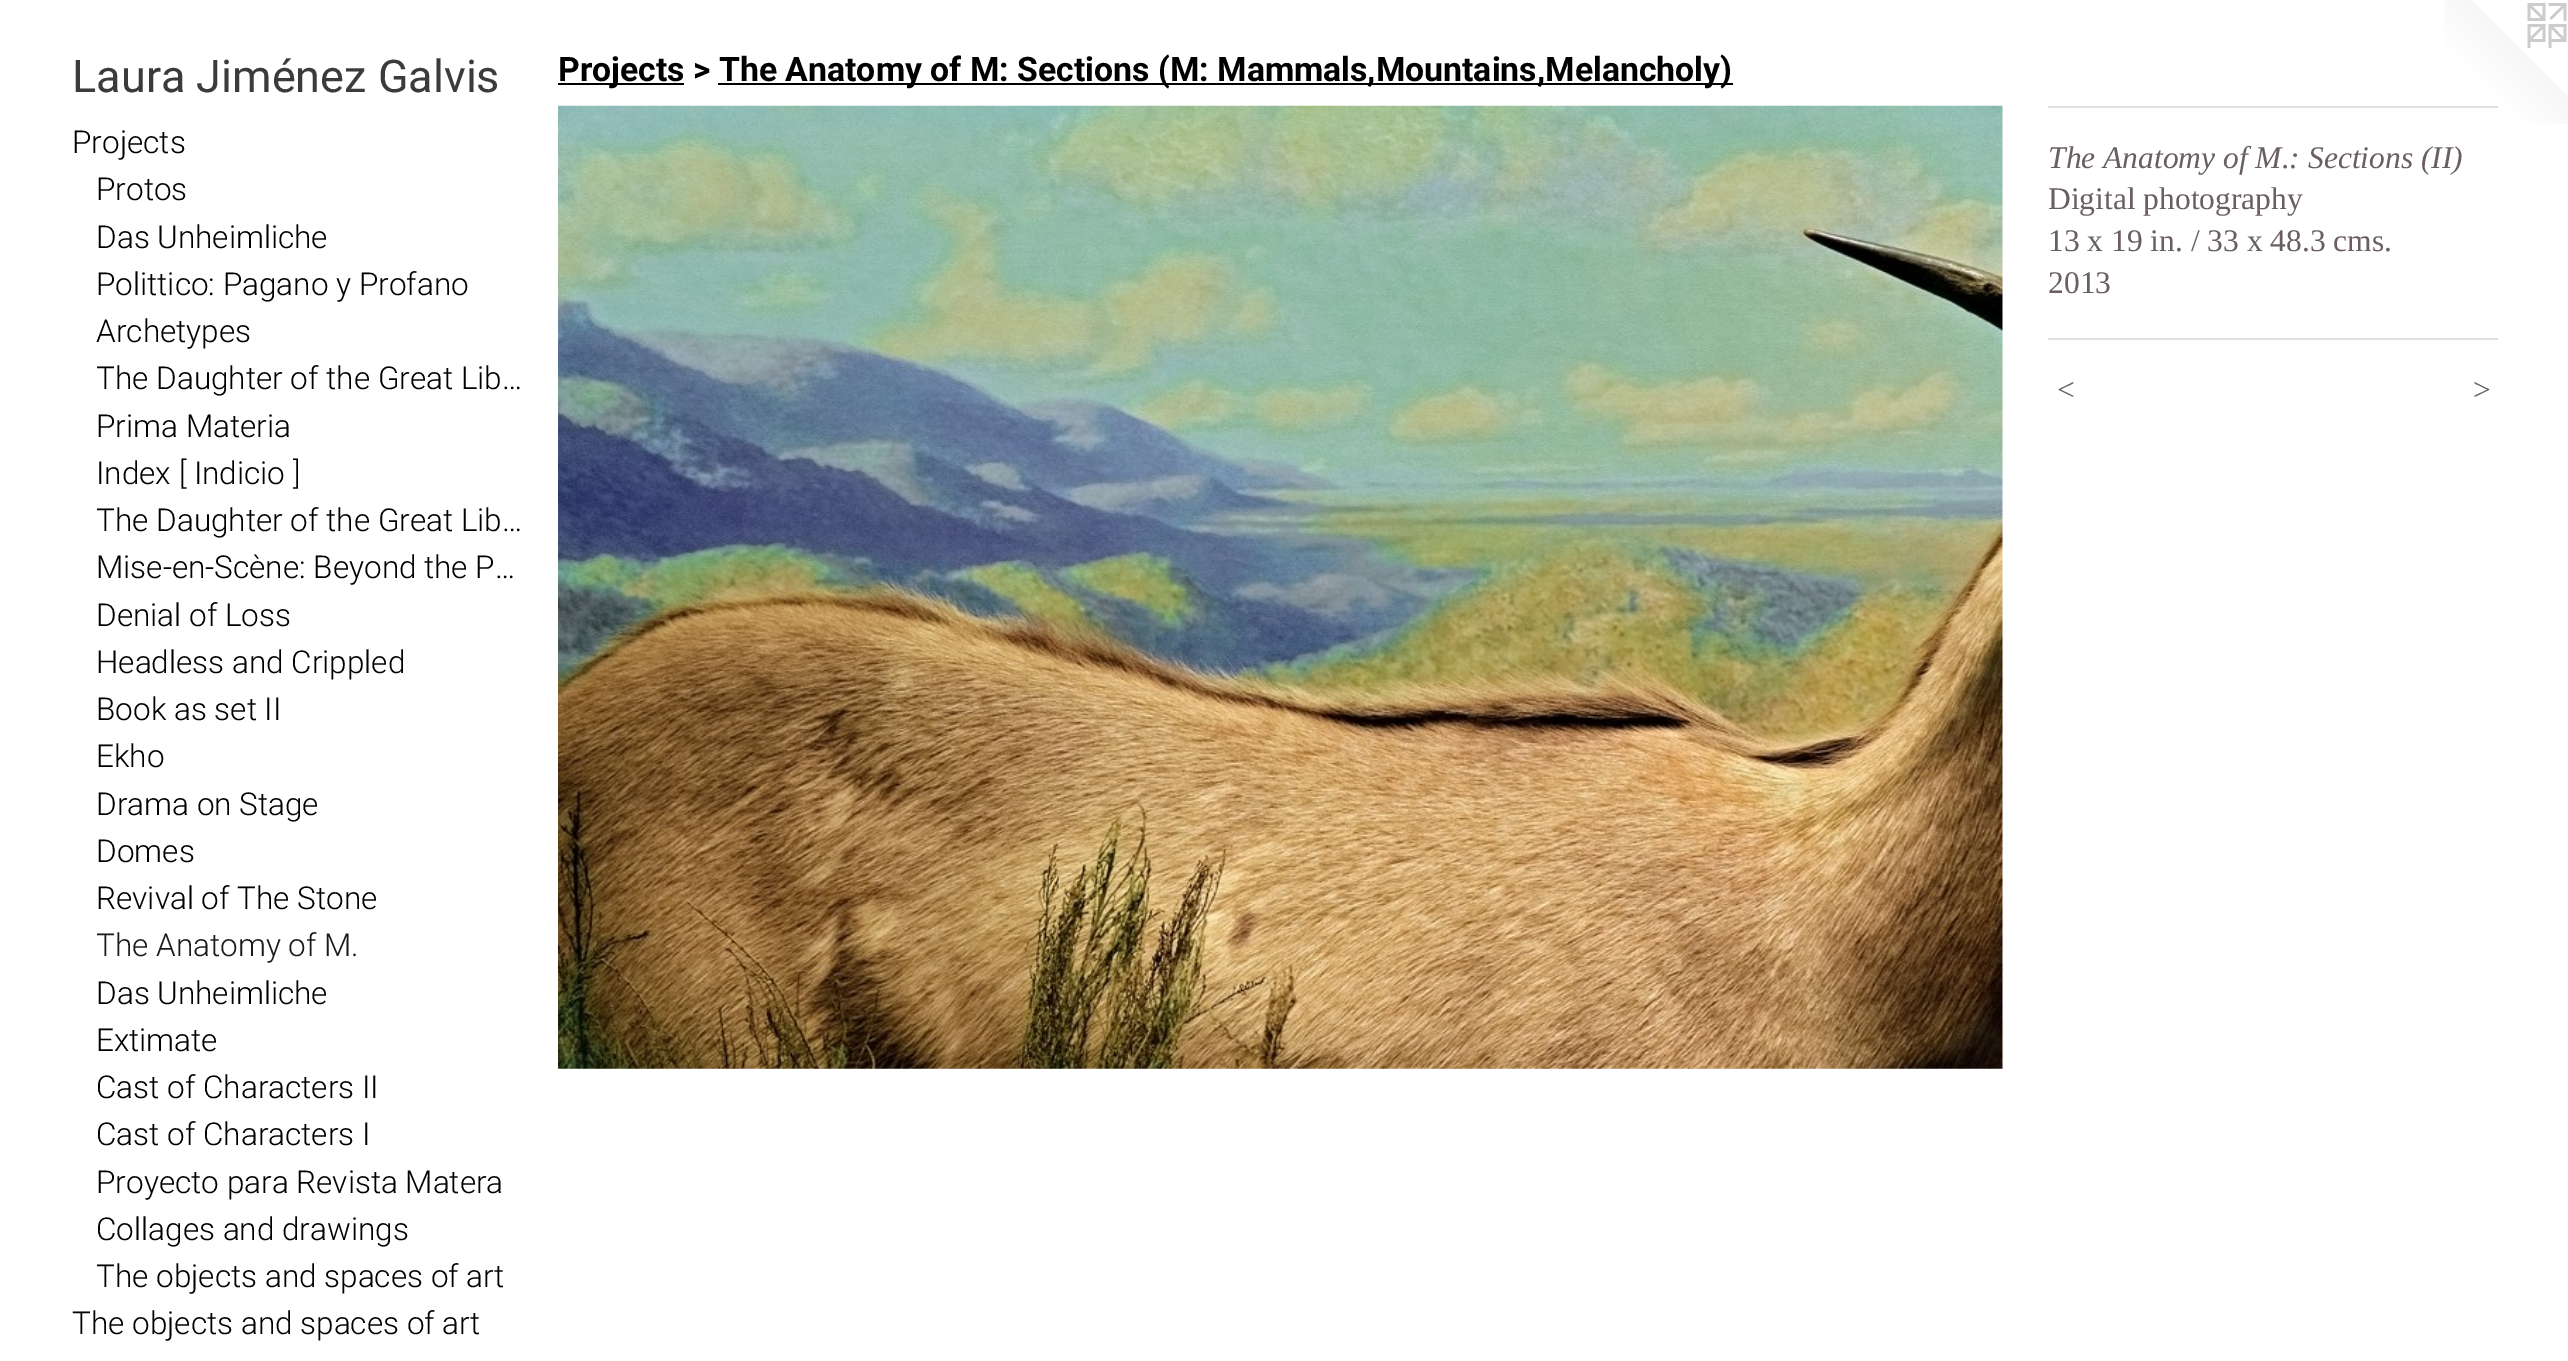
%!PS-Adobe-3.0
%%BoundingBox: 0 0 2568 1361
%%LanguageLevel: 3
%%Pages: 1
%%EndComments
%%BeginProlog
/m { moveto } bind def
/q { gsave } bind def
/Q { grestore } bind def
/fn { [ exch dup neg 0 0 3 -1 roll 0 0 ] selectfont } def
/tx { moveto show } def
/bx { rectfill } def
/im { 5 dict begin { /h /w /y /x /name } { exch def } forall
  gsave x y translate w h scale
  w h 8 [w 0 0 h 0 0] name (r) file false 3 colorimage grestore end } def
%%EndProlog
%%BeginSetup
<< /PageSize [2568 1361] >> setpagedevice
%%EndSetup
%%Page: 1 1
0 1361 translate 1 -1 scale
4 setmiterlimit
1 setgray
0 0 2568 1361 bx
/Roboto-Regular 45 fn
0.231 setgray
(Laura Jiménez Galvis) 72 92 tx
/Roboto-Light 31.5 fn
0 setgray
(Projects) 72 153 tx
(Protos) 96 200 tx
(Das Unheimliche) 96 248 tx
(Polittico: Pagano y Profano) 96 295 tx
(Archetypes) 96 342 tx
q
97 356 425 47 rectclip
(The Daughter of the Great Lib…) 96 389 tx
Q
(Prima Materia) 96 437 tx
(Index [ Indicio ]) 96 484 tx
q
97 497 425 48 rectclip
(The Daughter of the Great Lib…) 96 531 tx
Q
(Mise-en-Scène: Beyond the P…) 96 578 tx
(Denial of Loss) 96 626 tx
(Headless and Crippled) 96 673 tx
(Book as set II) 96 720 tx
(Ekho) 96 767 tx
(Drama on Stage) 96 815 tx
(Domes) 96 862 tx
(Revival of The Stone) 96 909 tx
q
97 923 425 47 rectclip
0.102 setgray
(The Anatomy of M.) 96 956 tx
Q
(Das Unheimliche) 96 1004 tx
(Extimate) 96 1051 tx
(Cast of Characters II) 96 1098 tx
(Cast of Characters I) 96 1145 tx
(Proyecto para Revista Matera) 96 1193 tx
(Collages and drawings) 96 1240 tx
q
97 1253 425 48 rectclip
(The objects and spaces of art) 96 1287 tx
Q
(The objects and spaces of art) 72 1334 tx
558 83 126 2 bx
/Roboto-Bold 33.75 fn
(Projects >) 558 81 tx
718 83 1015 2 bx
(The Anatomy of M: Sections \(M: Mammals,Mountains,Melancholy\)) 719 81 tx
(image0.raw) 558 105 1445 964 im
(image1.raw) 2444 0 124 124 im
0.882 0.875 0.875 setrgbcolor
2048 106 450 2 bx
/LiberationSerif-Italic 31.5 fn
0.412 0.373 0.373 setrgbcolor
(The Anatomy of M.: Sections \(II\)) 2048 168 tx
/LiberationSerif-Regular 31.5 fn
(Digital photography) 2048 209 tx
(13 x 19 in. / 33 x 48.3 cms.) 2048 251 tx
(2013) 2048 293 tx
0.882 0.875 0.875 setrgbcolor
2048 338 450 2 bx
/LiberationSerif-Italic 31.5 fn
0.412 0.373 0.373 setrgbcolor
2055 400 m 2 0 (<) ashow
2471 400 m 2 0 (>) ashow
showpage
%%EOF
